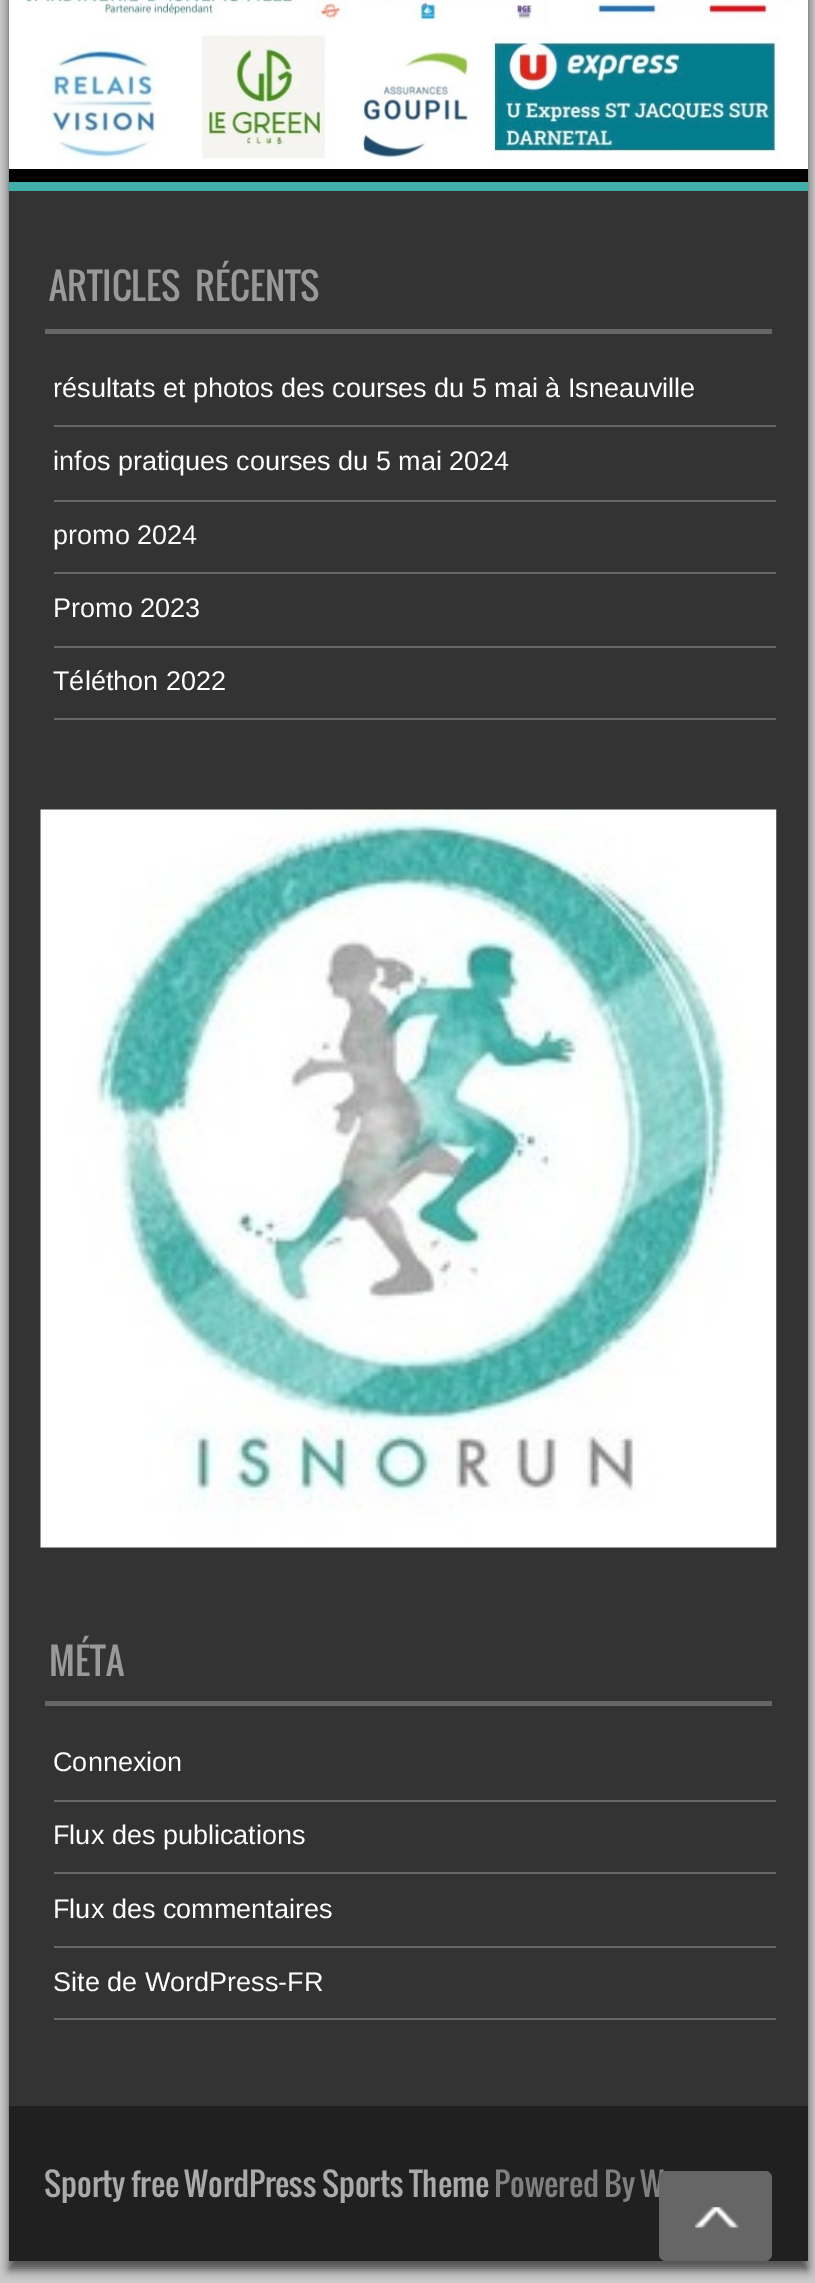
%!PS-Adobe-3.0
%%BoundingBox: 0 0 815 2283
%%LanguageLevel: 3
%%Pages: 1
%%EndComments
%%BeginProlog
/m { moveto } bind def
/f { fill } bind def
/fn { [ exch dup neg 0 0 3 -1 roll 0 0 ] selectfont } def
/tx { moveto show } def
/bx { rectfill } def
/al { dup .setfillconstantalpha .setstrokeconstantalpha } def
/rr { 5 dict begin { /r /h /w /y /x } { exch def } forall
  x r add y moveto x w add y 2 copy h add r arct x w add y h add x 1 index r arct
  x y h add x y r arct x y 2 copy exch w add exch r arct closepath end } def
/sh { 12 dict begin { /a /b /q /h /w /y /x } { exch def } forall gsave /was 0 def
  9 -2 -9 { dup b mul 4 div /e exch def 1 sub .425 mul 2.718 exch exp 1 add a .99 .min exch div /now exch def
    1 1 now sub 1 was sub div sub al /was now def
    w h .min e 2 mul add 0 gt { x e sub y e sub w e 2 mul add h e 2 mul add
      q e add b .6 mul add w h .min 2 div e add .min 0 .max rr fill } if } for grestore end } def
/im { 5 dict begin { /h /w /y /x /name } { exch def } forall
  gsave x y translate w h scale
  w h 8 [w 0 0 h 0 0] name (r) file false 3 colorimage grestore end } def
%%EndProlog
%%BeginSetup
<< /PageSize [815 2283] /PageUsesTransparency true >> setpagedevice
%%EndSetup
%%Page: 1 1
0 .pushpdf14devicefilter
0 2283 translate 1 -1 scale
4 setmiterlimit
0.788 setgray
0 0 815 2283 bx
0 setgray
9 -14 799 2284 0 4.5 0.6 sh
9 169 799 13 bx
1 setgray
9 0 799 169 bx
(image0.raw) 25 0 772 165 im
0.2 setgray
9 191 799 1915 bx
0.255 0.682 0.663 setrgbcolor
9 182 799 9 bx
0.4 setgray
45 329 727 5 bx
/Oswald-Regular 36 fn
0.6 setgray
49 301 m 9 0 32 (ARTICLES RÉCENTS) widthshow
0.4 setgray
54 425 722 2 bx
/LiberationSans-Regular 27 fn
1 setgray
(résultats et photos des courses du 5 mai à Isneauville) 53 397 tx
0.4 setgray
54 500 722 2 bx
1 setgray
(infos pratiques courses du 5 mai 2024) 53 470 tx
0.4 setgray
54 572 722 2 bx
1 setgray
(promo 2024) 53 544 tx
0.4 setgray
54 646 722 2 bx
1 setgray
(Promo 2023) 53 617 tx
0.4 setgray
54 718 722 2 bx
1 setgray
(Téléthon 2022) 53 690 tx
(image1.raw) 40 809 737 739 im
0.4 setgray
45 1701 727 5 bx
/Oswald-Regular 36 fn
0.6 setgray
(MÉTA) 49 1676 tx
0.4 setgray
54 1800 722 2 bx
/LiberationSans-Regular 27 fn
1 setgray
(Connexion) 53 1771 tx
0.4 setgray
54 1872 722 2 bx
1 setgray
(Flux des publications) 53 1844 tx
0.4 setgray
54 1946 722 2 bx
1 setgray
(Flux des commentaires) 53 1918 tx
0.4 setgray
54 2018 722 2 bx
1 setgray
(Site de WordPress-FR) 53 1991 tx
0.125 setgray
9 2106 799 155 bx
/Oswald-Regular 31.5 fn
0.667 setgray
(Sporty free WordPress Sports Theme) 44 2197 tx
0.502 setgray
(Powered By W) 494 2197 tx
0.4 setgray
659 2171 113 90 7 rr f
(image2.raw) 695 2207 44 22 im
.poppdf14devicefilter showpage
%%EOF
